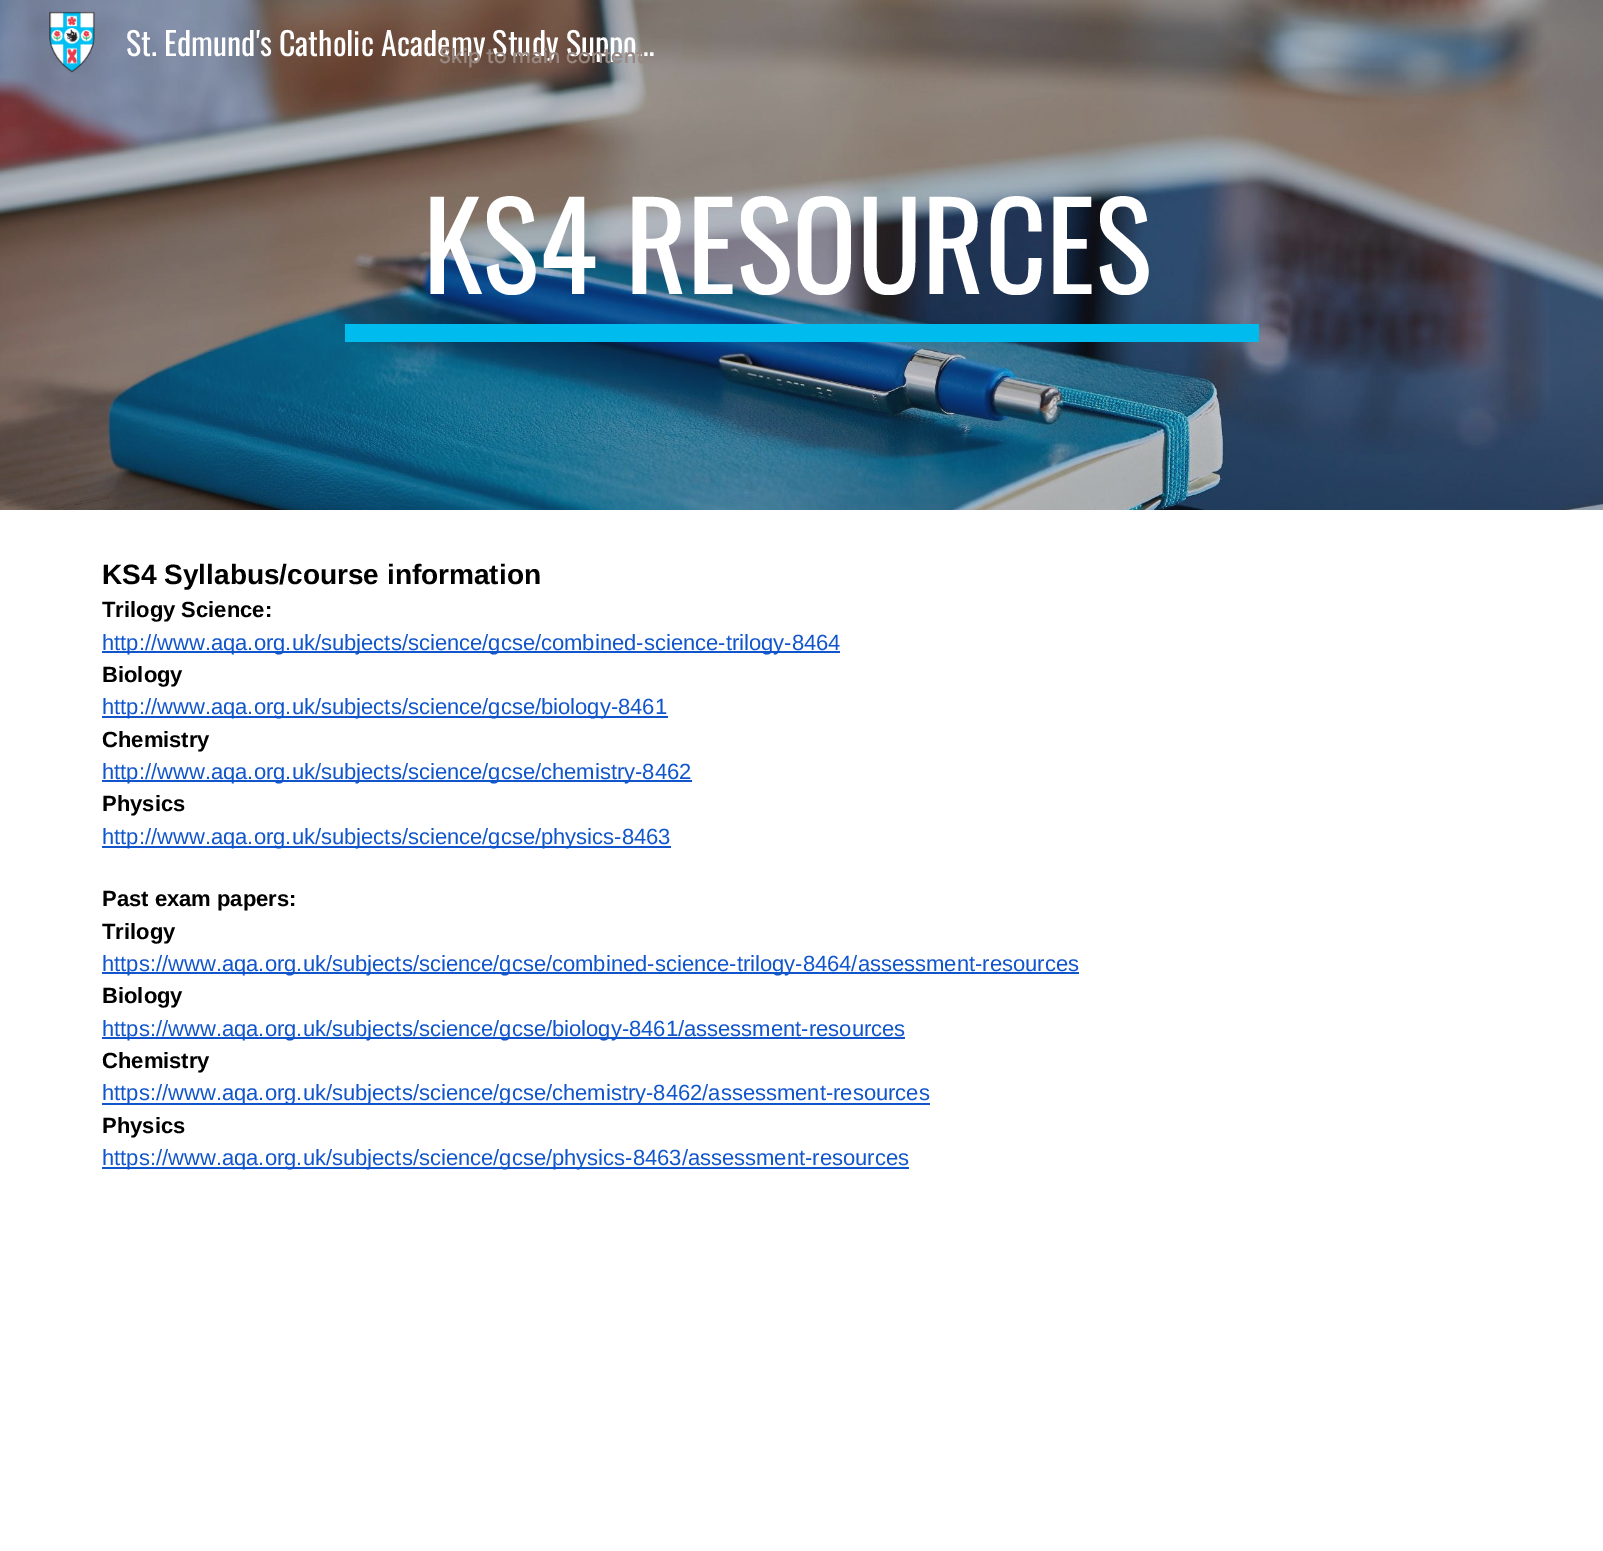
%!PS-Adobe-3.0
%%BoundingBox: 0 0 1603 1551
%%LanguageLevel: 3
%%Pages: 1
%%EndComments
%%BeginProlog
/m { moveto } bind def
/fn { [ exch dup neg 0 0 3 -1 roll 0 0 ] selectfont } def
/tx { moveto show } def
/bx { rectfill } def
/im { 5 dict begin { /h /w /y /x /name } { exch def } forall
  gsave x y translate w h scale
  w h 8 [w 0 0 h 0 0] name (r) file false 3 colorimage grestore end } def
%%EndProlog
%%BeginSetup
<< /PageSize [1603 1551] >> setpagedevice
%%EndSetup
%%Page: 1 1
0 1551 translate 1 -1 scale
4 setmiterlimit
1 setgray
0 0 1603 1551 bx
(image1.raw) 0 0 1603 510 im
(image0.raw) 49 11 46 62 im
/Oswald-Regular 32 fn
(St. Edmund's Catholic Academy Study Suppo…) 126 56 tx
/Oswald-Regular 120 fn
(KS4 RESOURCES) 423 294 tx
0 0.737 0.933 setrgbcolor
345 324 914 18 bx
/LiberationSans-Bold 28 fn
0 setgray
(KS4 Syllabus/course information) 102 584 tx
/LiberationSans-Bold 22 fn
(Trilogy Science:) 102 617 tx
0.067 0.333 0.8 setrgbcolor
102 651 738 2 bx
/LiberationSans-Regular 22 fn
(http://www.aqa.org.uk/subjects/science/gcse/combined-science-trilogy-8464) 102 650 tx
/LiberationSans-Bold 22 fn
0 setgray
(Biology) 102 682 tx
0.067 0.333 0.8 setrgbcolor
102 716 566 2 bx
/LiberationSans-Regular 22 fn
(http://www.aqa.org.uk/subjects/science/gcse/biology-8461) 102 714 tx
/LiberationSans-Bold 22 fn
0 setgray
(Chemistry) 102 747 tx
0.067 0.333 0.8 setrgbcolor
102 780 590 2 bx
/LiberationSans-Regular 22 fn
(http://www.aqa.org.uk/subjects/science/gcse/chemistry-8462) 102 779 tx
/LiberationSans-Bold 22 fn
0 setgray
(Physics) 102 811 tx
0.067 0.333 0.8 setrgbcolor
102 846 569 2 bx
/LiberationSans-Regular 22 fn
(http://www.aqa.org.uk/subjects/science/gcse/physics-8463) 102 844 tx
/LiberationSans-Bold 22 fn
0 setgray
(Past exam papers:) 102 906 tx
(Trilogy) 102 939 tx
0.067 0.333 0.8 setrgbcolor
102 972 977 2 bx
/LiberationSans-Regular 22 fn
(https://www.aqa.org.uk/subjects/science/gcse/combined-science-trilogy-8464/assessment-resources) 102 971 tx
/LiberationSans-Bold 22 fn
0 setgray
(Biology) 102 1003 tx
0.067 0.333 0.8 setrgbcolor
102 1037 803 2 bx
/LiberationSans-Regular 22 fn
(https://www.aqa.org.uk/subjects/science/gcse/biology-8461/assessment-resources) 102 1036 tx
/LiberationSans-Bold 22 fn
0 setgray
(Chemistry) 102 1068 tx
0.067 0.333 0.8 setrgbcolor
102 1103 828 2 bx
/LiberationSans-Regular 22 fn
(https://www.aqa.org.uk/subjects/science/gcse/chemistry-8462/assessment-resources) 102 1100 tx
/LiberationSans-Bold 22 fn
0 setgray
(Physics) 102 1133 tx
0.067 0.333 0.8 setrgbcolor
102 1167 807 2 bx
/LiberationSans-Regular 22 fn
(https://www.aqa.org.uk/subjects/science/gcse/physics-8463/assessment-resources) 102 1165 tx
/GoogleSans-Medium 21 fn
0.592 0.529 0.502 setrgbcolor
439 63 m 0.25 0 (Skip to main content) ashow
showpage
%%EOF
